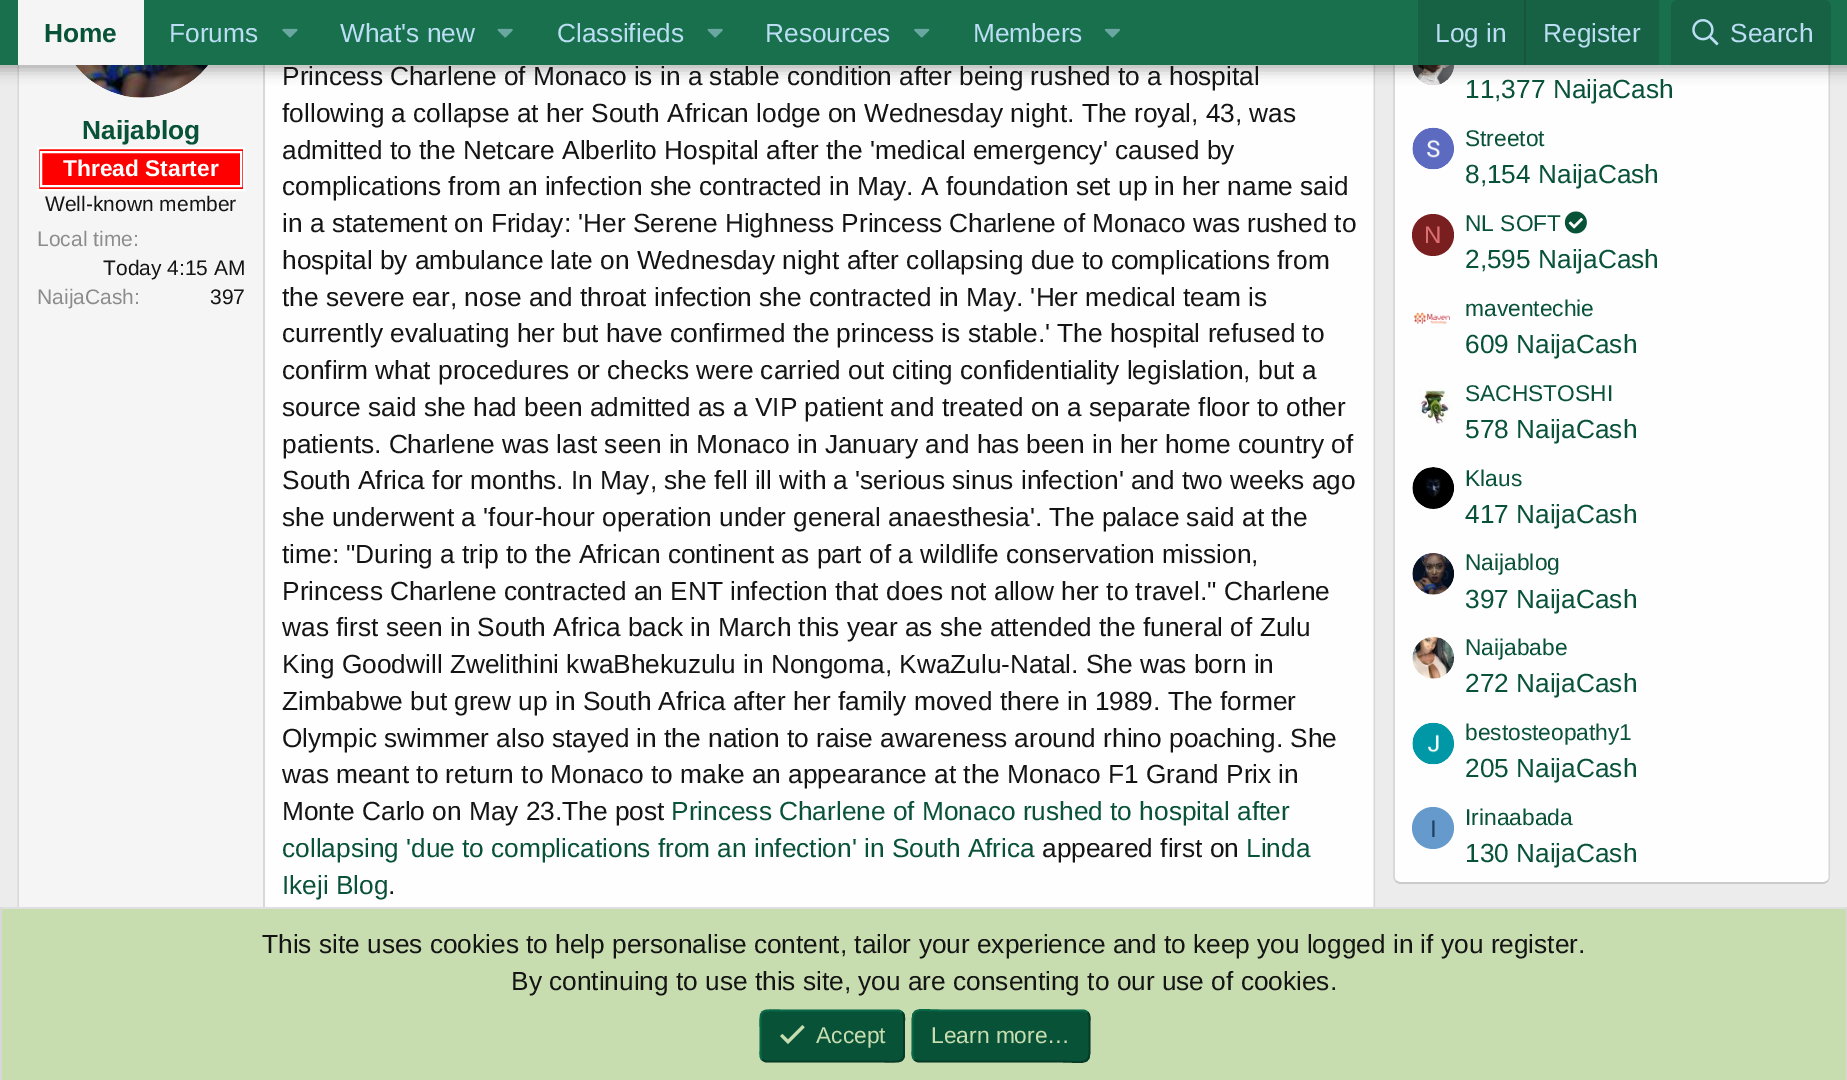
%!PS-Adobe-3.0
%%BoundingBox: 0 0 1847 1080
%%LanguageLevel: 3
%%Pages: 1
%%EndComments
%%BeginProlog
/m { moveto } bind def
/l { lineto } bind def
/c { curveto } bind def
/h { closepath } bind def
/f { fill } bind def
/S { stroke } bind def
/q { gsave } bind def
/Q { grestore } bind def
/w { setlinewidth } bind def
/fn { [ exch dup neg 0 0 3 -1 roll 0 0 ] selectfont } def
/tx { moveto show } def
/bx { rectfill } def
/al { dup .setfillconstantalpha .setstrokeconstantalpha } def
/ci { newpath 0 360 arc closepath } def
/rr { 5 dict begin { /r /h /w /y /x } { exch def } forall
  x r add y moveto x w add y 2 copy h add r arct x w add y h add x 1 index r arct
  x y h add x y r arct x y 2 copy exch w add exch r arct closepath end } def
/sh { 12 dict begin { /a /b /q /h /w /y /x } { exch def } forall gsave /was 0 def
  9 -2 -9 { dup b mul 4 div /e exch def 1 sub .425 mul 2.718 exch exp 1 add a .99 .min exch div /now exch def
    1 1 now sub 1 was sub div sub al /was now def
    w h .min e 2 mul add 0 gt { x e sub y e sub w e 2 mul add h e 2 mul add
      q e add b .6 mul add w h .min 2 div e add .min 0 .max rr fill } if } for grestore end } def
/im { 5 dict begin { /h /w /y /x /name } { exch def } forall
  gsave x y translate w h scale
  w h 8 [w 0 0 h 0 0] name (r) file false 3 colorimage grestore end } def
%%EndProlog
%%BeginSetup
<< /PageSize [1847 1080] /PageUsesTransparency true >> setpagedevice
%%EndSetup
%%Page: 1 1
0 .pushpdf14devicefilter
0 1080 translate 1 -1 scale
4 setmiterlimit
0.925 setgray
0 0 1847 1080 bx
0.996 setgray
265 65 1111 842 bx
0.847 setgray
1.8 w
1373 -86.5 m 1374 -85.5 1374.5 -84 1374.5 -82 c 1374.5 1052 l 1374.5 1053.5 1374 1055 1373 1056 c S
20 1056 m 19 1055 18.5 1053.5 18.5 1052 c 18.5 -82 l 18.5 -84 19 -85.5 20 -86.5 c S
0.961 setgray
19 65 244 842 bx
0.847 setgray
263 65 2 842 bx
0.996 setgray
142 14 84 ci f
(image5.raw) 75 65 133 33 im
1393 -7 438 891 7 rr f
0.847 setgray
1828 -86.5 m 1829 -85.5 1829.5 -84 1829.5 -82 c 1829.5 877 l 1829.5 878.5 1829 880 1828 881 c S
0.796 setgray
1828 881 m 1826.5 882 1825 883 1823.5 883 c 1400 883 l 1398.5 883 1397 882 1395.5 881 c S
0.847 setgray
1395.5 881 m 1394.5 880 1394 878.5 1394 877 c 1394 -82 l 1394 -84 1394.5 -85.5 1395.5 -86.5 c S
(image6.raw) 1412 65 42 20 im
0 setgray
-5 -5 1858 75 0 7 0.3 sh
0.094 0.439 0.302 setrgbcolor
0 0 1847 65 bx
0.961 setgray
18 0 126 65 bx
/LiberationSans-Bold 26.25 fn
0.031 0.322 0.22 setrgbcolor
(Home) 44 42 tx
/LiberationSans-Regular 26.25 fn
0.737 0.871 0.961 setrgbcolor
(Forums) 169 42 tx
(image0.raw) 282 28 16 10 im
(What's new) 340 42 tx
(image1.raw) 497 28 16 10 im
(Classifieds) 557 42 tx
(image1.raw) 707 28 16 10 im
(Resources) 765 42 tx
(image2.raw) 914 28 16 10 im
(Members) 973 42 tx
(image3.raw) 1104 28 16 10 im
0.09 0.384 0.267 setrgbcolor
1418 0 241 65 bx
0.737 0.871 0.961 setrgbcolor
(Log in) 1435 42 tx
0.09 0.337 0.239 setrgbcolor
1524 0 2 65 bx
0.737 0.871 0.961 setrgbcolor
(Register) 1543 42 tx
0.09 0.384 0.267 setrgbcolor
1678 0 m 1824 0 l 1828 0 1831 3 1831 7 c 1831 65 l 1671 65 l 1671 7 l 1671 3 1674 0 1678 0 c h f
(image4.raw) 1692 19 27 27 im
0.737 0.871 0.961 setrgbcolor
(Search) 1730 42 tx
/LiberationSans-Bold 26.25 fn
0.031 0.322 0.22 setrgbcolor
(Naijablog) 82 139 tx
1 0 0 setrgbcolor
38 148 m 244 148 l 244 190 l 38 190 l h q f Q
1 setgray
2 w
S
41 152 200 34 rectstroke
/LiberationSans-Bold 22.75 fn
(Thread Starter) 63 176 tx
/LiberationSans-Regular 21 fn
0.078 setgray
(Well-known member) 45 211 tx
0.549 setgray
(Local time:) 37 246 tx
0.078 setgray
(Today 4:15 AM) 103 275 tx
0.549 setgray
(NaijaCash:) 37 304 tx
0.078 setgray
(397) 210 304 tx
/LiberationSans-Regular 26.25 fn
(Princess Charlene of Monaco is in a stable condition after being rushed to a hospital) 282 85 tx
(following a collapse at her South African lodge on Wednesday night. The royal, 43, was) 282 122 tx
(admitted to the Netcare Alberlito Hospital after the 'medical emergency' caused by) 282 159 tx
(complications from an infection she contracted in May. A foundation set up in her name said) 282 195 tx
(in a statement on Friday: 'Her Serene Highness Princess Charlene of Monaco was rushed to) 282 232 tx
(hospital by ambulance late on Wednesday night after collapsing due to complications from) 282 269 tx
(the severe ear, nose and throat infection she contracted in May. 'Her medical team is) 282 306 tx
(currently evaluating her but have confirmed the princess is stable.' The hospital refused to) 282 342 tx
(confirm what procedures or checks were carried out citing confidentiality legislation, but a) 282 379 tx
(source said she had been admitted as a VIP patient and treated on a separate floor to other) 282 416 tx
(patients. Charlene was last seen in Monaco in January and has been in her home country of) 282 453 tx
(South Africa for months. In May, she fell ill with a 'serious sinus infection' and two weeks ago) 282 489 tx
(she underwent a 'four-hour operation under general anaesthesia'. The palace said at the) 282 526 tx
(time: "During a trip to the African continent as part of a wildlife conservation mission,) 282 563 tx
(Princess Charlene contracted an ENT infection that does not allow her to travel." Charlene) 282 600 tx
(was first seen in South Africa back in March this year as she attended the funeral of Zulu) 282 636 tx
(King Goodwill Zwelithini kwaBhekuzulu in Nongoma, KwaZulu-Natal. She was born in) 282 673 tx
(Zimbabwe but grew up in South Africa after her family moved there in 1989. The former) 282 710 tx
(Olympic swimmer also stayed in the nation to raise awareness around rhino poaching. She) 282 747 tx
(was meant to return to Monaco to make an appearance at the Monaco F1 Grand Prix in) 282 783 tx
(Monte Carlo on May 23.The post) 282 820 tx
0.031 0.322 0.22 setrgbcolor
(Princess Charlene of Monaco rushed to hospital after) 671 820 tx
(collapsing 'due to complications from an infection' in South Africa) 282 857 tx
0.078 setgray
(appeared first on) 1042 857 tx
0.031 0.322 0.22 setrgbcolor
(Linda) 1246 857 tx
(Ikeji Blog) 282 894 tx
0.078 setgray
(.) 388 894 tx
0.031 0.322 0.22 setrgbcolor
(11,377 NaijaCash) 1465 98 tx
(image7.raw) 1412 127 42 43 im
/LiberationSans-Regular 22.75 fn
(Streetot) 1465 146 tx
/LiberationSans-Regular 26.25 fn
(8,154 NaijaCash) 1465 183 tx
0.478 0.122 0.122 setrgbcolor
1433 235 21 ci f
/LiberationSans-Regular 24 fn
0.859 0.439 0.439 setrgbcolor
(N) 1424 243 tx
/LiberationSans-Regular 22.75 fn
0.031 0.322 0.22 setrgbcolor
(NL SOFT) 1465 231 tx
(image8.raw) 1564 211 23 23 im
/LiberationSans-Regular 26.25 fn
(2,595 NaijaCash) 1465 268 tx
(image9.raw) 1414 312 36 13 im
/LiberationSans-Regular 22.75 fn
(maventechie) 1465 316 tx
/LiberationSans-Regular 26.25 fn
(609 NaijaCash) 1465 353 tx
(image10.raw) 1419 388 33 37 im
/LiberationSans-Regular 22.75 fn
(SACHSTOSHI) 1465 401 tx
/LiberationSans-Regular 26.25 fn
(578 NaijaCash) 1465 438 tx
(image11.raw) 1412 467 42 42 im
/LiberationSans-Regular 22.75 fn
(Klaus) 1465 486 tx
/LiberationSans-Regular 26.25 fn
(417 NaijaCash) 1465 523 tx
(image12.raw) 1412 553 42 42 im
/LiberationSans-Regular 22.75 fn
(Naijablog) 1465 570 tx
/LiberationSans-Regular 26.25 fn
(397 NaijaCash) 1465 608 tx
(image13.raw) 1412 637 42 42 im
/LiberationSans-Regular 22.75 fn
(Naijababe) 1465 655 tx
/LiberationSans-Regular 26.25 fn
(272 NaijaCash) 1465 692 tx
(image14.raw) 1412 722 42 43 im
/LiberationSans-Regular 22.75 fn
(bestosteopathy1) 1465 740 tx
/LiberationSans-Regular 26.25 fn
(205 NaijaCash) 1465 777 tx
0.4 0.6 0.8 setrgbcolor
1433 828 21 ci f
/LiberationSans-Regular 24 fn
0.125 0.251 0.376 setrgbcolor
(I) 1430 837 tx
/LiberationSans-Regular 22.75 fn
0.031 0.322 0.22 setrgbcolor
(Irinaabada) 1465 825 tx
/LiberationSans-Regular 26.25 fn
(130 NaijaCash) 1465 862 tx
0.78 0.863 0.686 setrgbcolor
2 909 1844 171 bx
0.875 setgray
0 907 1847 2 bx
0.847 setgray
1846 907 1 173 bx
0 907 2 173 bx
0.078 setgray
(This site uses cookies to help personalise content, tailor your experience and to keep you logged in if you register.) 262 953 tx
(By continuing to use this site, you are consenting to our use of cookies.) 511 990 tx
0.031 0.322 0.22 setrgbcolor
760 1010 145 52 7 rr f
0.024 0.231 0.157 setrgbcolor
1.8 w
902 1012.5 m 905 1015 904 1020 904 1023 c 904 1036 l 904 1066 907.5 1061.5 876 1061.5 c 766.5 1061.5 l 765 1061.5 763.5 1060.5 762 1059.5 c S
0.039 0.412 0.282 setrgbcolor
762 1059.5 m 759.5 1057 760.5 1052 760.5 1049 c 760.5 1036 l 760.5 1006 756.5 1010.5 788.5 1010.5 c 898 1010.5 l 899.5 1010.5 901 1011.5 902 1012.5 c S
(image15.raw) 780 1025 25 19 im
/LiberationSans-Regular 22.75 fn
0.78 0.863 0.686 setrgbcolor
(Accept) 816 1043 tx
0.031 0.322 0.22 setrgbcolor
912 1010 178 52 7 rr f
0.024 0.231 0.157 setrgbcolor
1087.5 1012.5 m 1090.5 1015 1089.5 1020 1089.5 1023 c 1089.5 1036 l 1089.5 1068 1092.5 1061.5 1056 1061.5 c 919 1061.5 l 917 1061.5 915.5 1060.5 914.5 1059.5 c S
0.039 0.412 0.282 setrgbcolor
914.5 1059.5 m 911.5 1057 912.5 1052 912.5 1049 c 912.5 1036 l 912.5 1004 909.5 1010.5 946 1010.5 c 1083 1010.5 l 1085 1010.5 1086.5 1011.5 1087.5 1012.5 c S
0.78 0.863 0.686 setrgbcolor
(Learn more…) 931 1043 tx
.poppdf14devicefilter showpage
%%EOF
